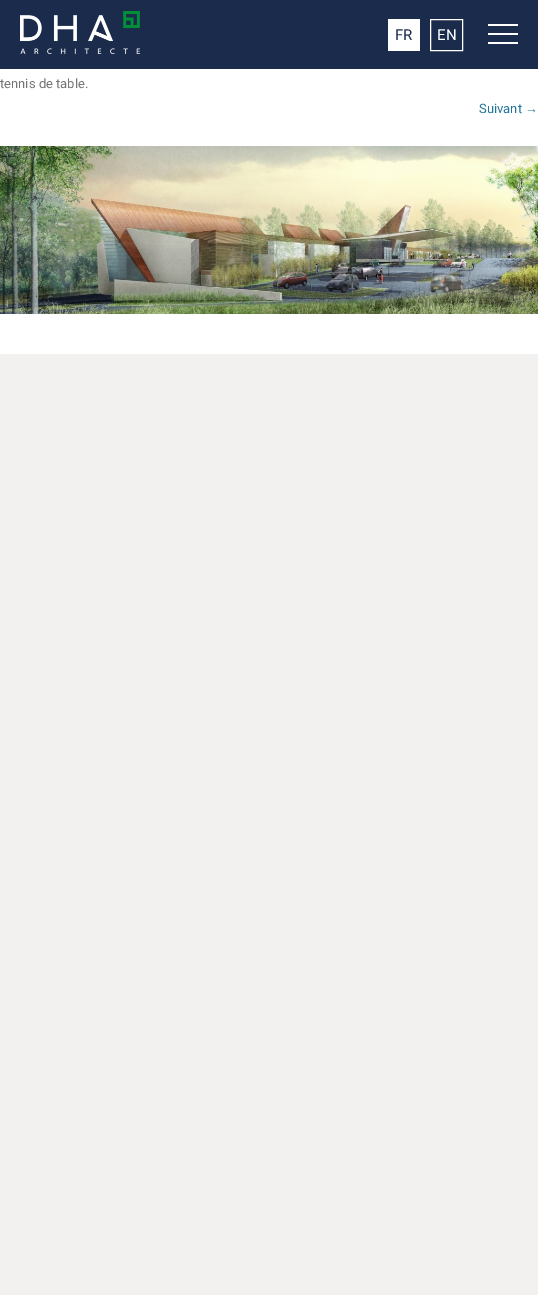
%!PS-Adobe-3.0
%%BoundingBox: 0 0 538 1295
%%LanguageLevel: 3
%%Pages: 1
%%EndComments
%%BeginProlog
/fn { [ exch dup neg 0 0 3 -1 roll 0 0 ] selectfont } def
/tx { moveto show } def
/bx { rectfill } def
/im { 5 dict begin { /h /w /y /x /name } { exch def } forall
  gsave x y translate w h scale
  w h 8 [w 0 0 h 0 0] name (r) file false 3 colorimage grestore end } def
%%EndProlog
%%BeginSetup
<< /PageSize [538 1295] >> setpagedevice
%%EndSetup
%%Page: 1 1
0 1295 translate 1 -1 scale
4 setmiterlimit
0.949 0.945 0.937 setrgbcolor
0 0 538 1295 bx
0.102 0.169 0.298 setrgbcolor
0 0 538 69 bx
1 setgray
488 24 30 2 bx
488 33 30 2 bx
488 42 30 2 bx
0 69 538 285 bx
(image0.raw) 20 11 120 43 im
388 19 32 32 bx
/Roboto-Regular 15 fn
0.102 0.169 0.298 setrgbcolor
(FR) 395 40 tx
1 setgray
430.5 19.5 32 31 rectstroke
(EN) 437 40 tx
/Roboto-Regular 13 fn
0.459 setgray
(tennis de table.) 0 88 tx
0.129 0.459 0.608 setrgbcolor
(Suivant) 479 113 tx
/LiberationSans-Regular 13 fn
(→) 525 113 tx
(image1.raw) 0 146 538 168 im
showpage
%%EOF
